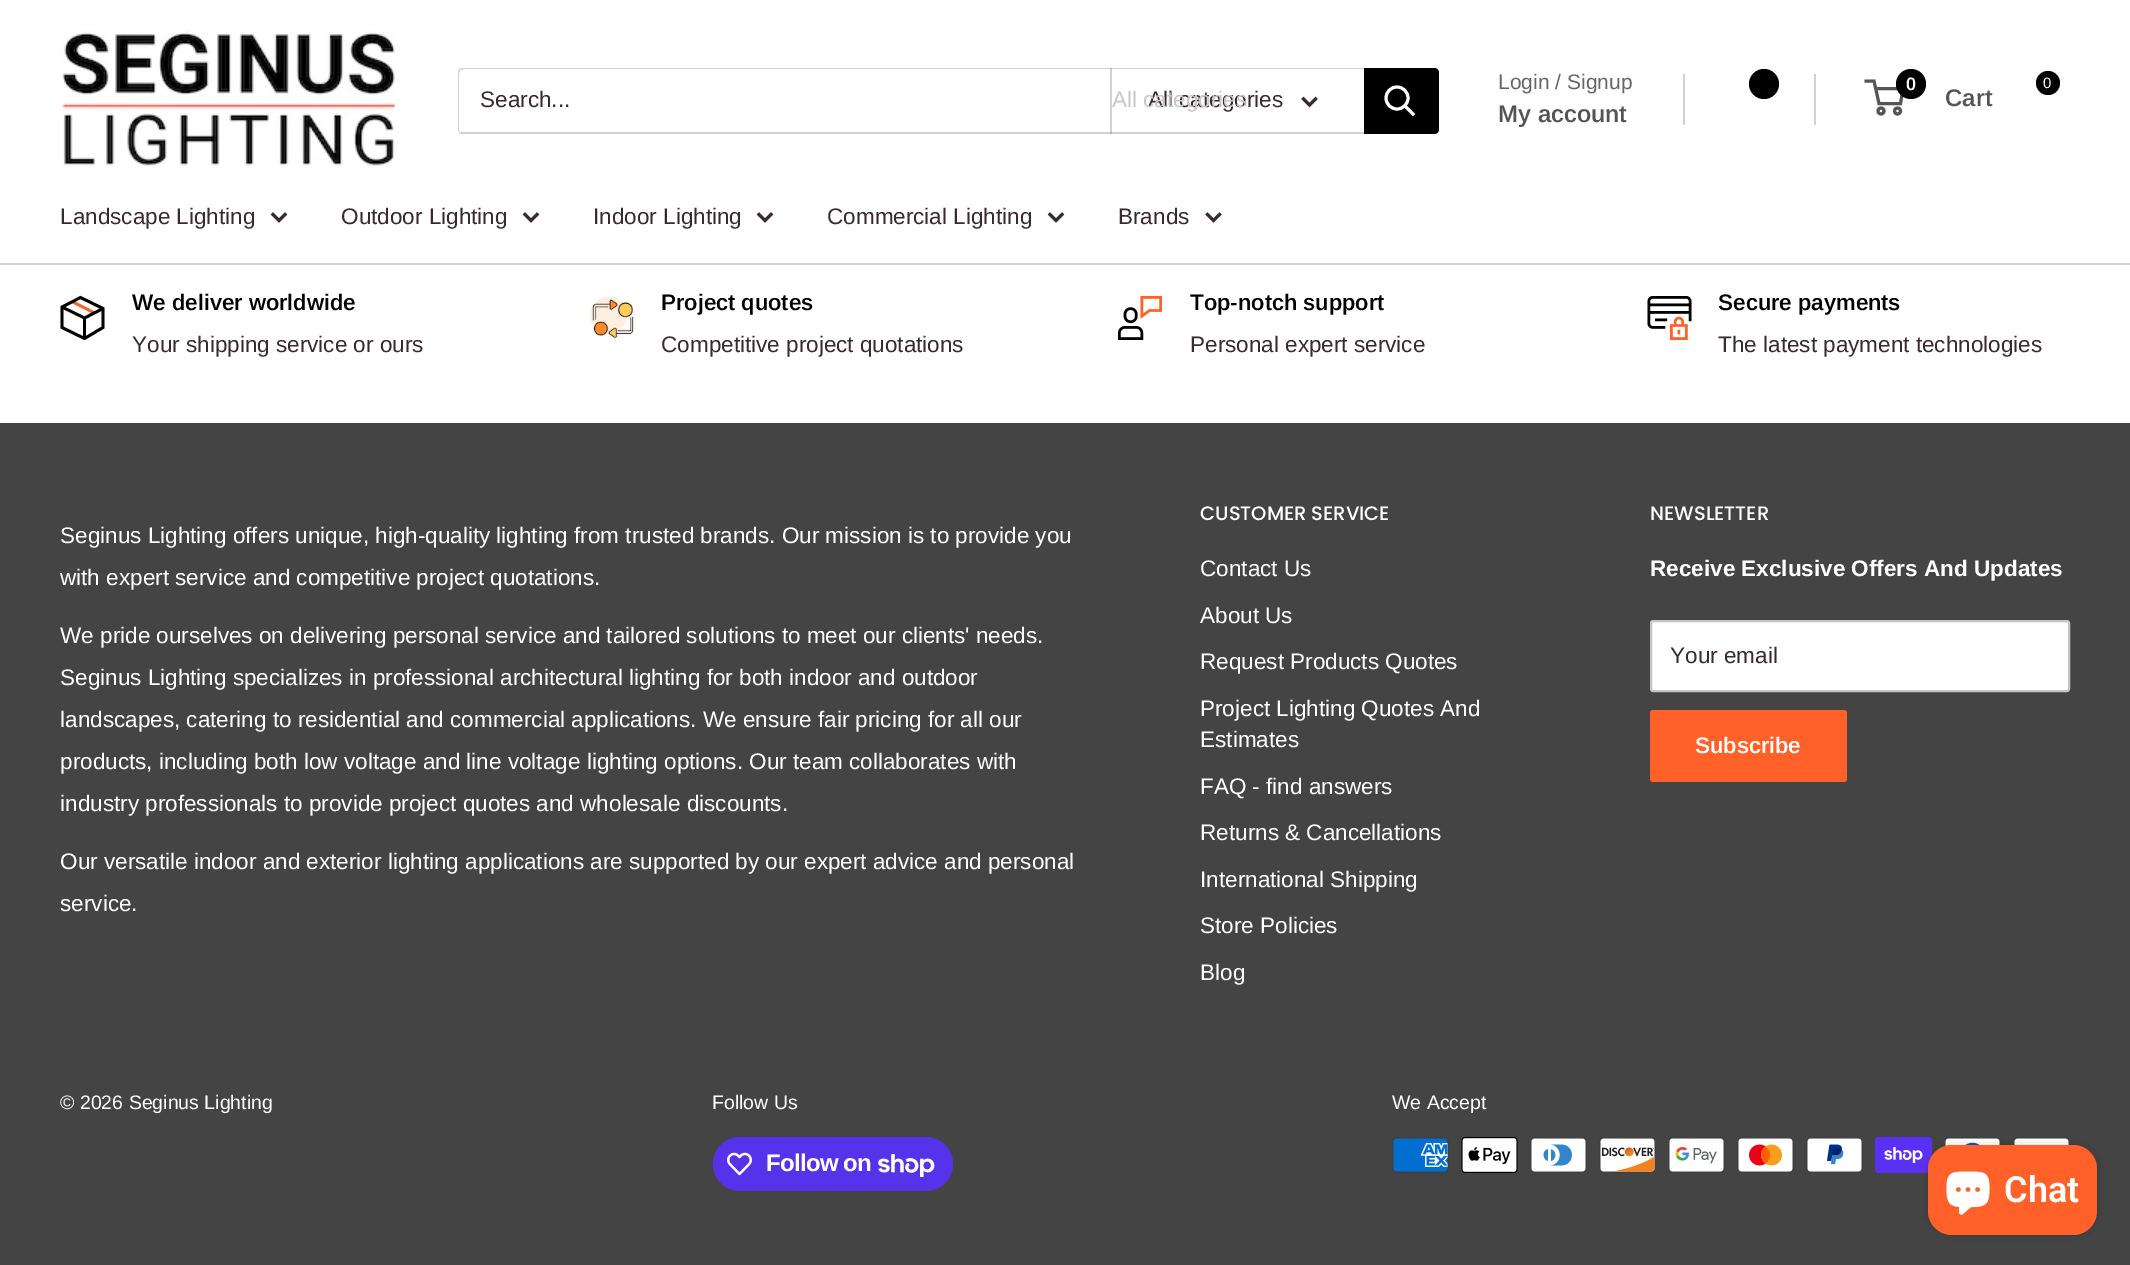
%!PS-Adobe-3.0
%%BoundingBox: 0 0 2130 1265
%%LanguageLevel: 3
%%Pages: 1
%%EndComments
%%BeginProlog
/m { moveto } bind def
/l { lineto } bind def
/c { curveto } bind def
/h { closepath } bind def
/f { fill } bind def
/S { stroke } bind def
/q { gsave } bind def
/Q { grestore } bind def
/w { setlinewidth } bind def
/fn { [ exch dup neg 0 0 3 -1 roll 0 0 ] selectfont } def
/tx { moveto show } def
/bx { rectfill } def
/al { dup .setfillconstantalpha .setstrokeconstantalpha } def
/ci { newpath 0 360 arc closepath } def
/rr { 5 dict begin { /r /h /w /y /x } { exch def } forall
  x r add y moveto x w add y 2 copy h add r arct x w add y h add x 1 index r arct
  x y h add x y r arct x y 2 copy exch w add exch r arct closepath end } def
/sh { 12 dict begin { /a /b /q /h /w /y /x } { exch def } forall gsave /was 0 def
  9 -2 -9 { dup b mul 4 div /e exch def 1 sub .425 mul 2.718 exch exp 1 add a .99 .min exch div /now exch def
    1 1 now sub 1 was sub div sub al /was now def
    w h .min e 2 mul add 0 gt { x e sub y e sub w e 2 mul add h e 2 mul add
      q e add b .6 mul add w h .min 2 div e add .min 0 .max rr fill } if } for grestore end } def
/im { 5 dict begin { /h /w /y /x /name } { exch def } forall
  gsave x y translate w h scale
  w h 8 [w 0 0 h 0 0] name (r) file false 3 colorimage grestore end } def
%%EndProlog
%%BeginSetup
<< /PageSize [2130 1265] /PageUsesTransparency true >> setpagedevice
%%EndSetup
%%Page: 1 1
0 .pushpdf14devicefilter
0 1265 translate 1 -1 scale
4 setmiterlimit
1 setgray
0 0 2130 1265 bx
(image0.raw) 61 30 337 138 im
0.82 setgray
459 132 m 460 133 461 134 463 134 c 1434 134 l 1437 134 1439 132 1439 129 c 1439 73 l 1439 71 1438 70 1437 69 c 1437 118 l 1437 123 1439 132 1432 132 c h f
464 69 m 1437 69 l 1436 68 1435 68 1434 68 c 463 68 l 460 68 458 70 458 73 c 458 129 l 458 130 459 132 460 133 c 459 130 l 459 74 l 459 71 461 69 464 69 c h f
/Arimo-Regular 22.5 fn
0.227 0.165 0.184 setrgbcolor
(Search...) 480 107 tx
0.3 al
0.4 setgray
1110 68 2 66 bx
1 al
0.227 0.165 0.184 setrgbcolor
(All categories) 1148 107 tx
0.796 0.78 0.788 setrgbcolor
(All categories) 1112 107 tx
0.227 0.165 0.184 setrgbcolor
3 w
2 setlinecap
1315.5 99 m 1309.5 105 l 1303.5 99 l S
0 setgray
1364 68 m 1434 68 l 1437 68 1439 70 1439 73 c 1439 129 l 1439 132 1437 134 1434 134 c 1364 134 l h f
1 setgray
1413 114 m 1405.5 106.5 l S
0 setlinecap
1397 98 11 ci S
/Arimo-Regular 21 fn
0.4 setgray
(Login / Signup) 1498 89 tx
0.82 setgray
1683 74 2 51 bx
/Arimo-SemiBold 24 fn
0.333 setgray
(My account) 1498 122 tx
0 setgray
1764 84 15 ci f
0.82 setgray
1814 74 2 51 bx
0.333 setgray
1881 111 3 ci S
1897.5 111 3 ci S
1875.5 88.5 m 1903 88.5 l 1900.5 103.5 l 1879 103.5 l 1874 81 l 1864.5 81 l S
0 setgray
1911 84 15 ci f
/Arimo-SemiBold 18 fn
1 setgray
(0) 1906 90 tx
/Arimo-SemiBold 24 fn
0.333 setgray
(Cart) 1945 106 tx
0 setgray
2048 83 12 ci f
/Arimo-Regular 15 fn
1 setgray
(0) 2043 88 tx
0.82 0.82 0.831 setrgbcolor
0 263 2130 2 bx
/Arimo-Regular 22.5 fn
0.227 0.165 0.184 setrgbcolor
(Landscape Lighting) 60 224 tx
2 setlinecap
285 214.5 m 279 220.5 l 273 214.5 l S
(Outdoor Lighting) 341 224 tx
537 214.5 m 531 220.5 l 525 214.5 l S
(Indoor Lighting) 593 224 tx
771 214.5 m 765 220.5 l 759 214.5 l S
(Commercial Lighting) 827 224 tx
1062 214.5 m 1056 220.5 l 1050 214.5 l S
(Brands) 1118 224 tx
1219.5 214.5 m 1213.5 220.5 l 1207.5 214.5 l S
1 0.38 0.157 setrgbcolor
2.8 w
0 setlinecap
72 301.5 m 94.5 313 l S
0 setgray
103 308.5 m 84.5 318 l 62 307 l 84.5 318 m 84.5 338.5 l S
2 setlinecap
103 308.5 m 103 327.5 l 84.5 338.5 l 62 327.5 l 62 307 l 80.5 297.5 l h S
/Arimo-SemiBold 22.5 fn
(We deliver worldwide) 132 310 tx
/Arimo-Regular 22.5 fn
0.227 0.165 0.184 setrgbcolor
(Your shipping service or ours) 132 352 tx
(image1.raw) 590 295 45 44 im
/Arimo-SemiBold 22.5 fn
0 setgray
(Project quotes) 661 310 tx
/Arimo-Regular 22.5 fn
0.227 0.165 0.184 setrgbcolor
(Competitive project quotations) 661 352 tx
(image2.raw) 1118 296 45 44 im
/Arimo-SemiBold 22.5 fn
0 setgray
(Top-notch support) 1190 310 tx
/Arimo-Regular 22.5 fn
0.227 0.165 0.184 setrgbcolor
(Personal expert service) 1190 352 tx
(image3.raw) 1647 296 45 44 im
/Arimo-SemiBold 22.5 fn
0 setgray
(Secure payments) 1718 310 tx
/Arimo-Regular 22.5 fn
0.227 0.165 0.184 setrgbcolor
(The latest payment technologies) 1718 352 tx
0.267 setgray
0 423 2130 842 bx
1 setgray
(Seginus Lighting offers unique, high-quality lighting from trusted brands. Our mission is to provide you) 60 543 tx
(with expert service and competitive project quotations.) 60 585 tx
(We pride ourselves on delivering personal service and tailored solutions to meet our clients' needs.) 60 643 tx
(Seginus Lighting specializes in professional architectural lighting for both indoor and outdoor) 60 685 tx
(landscapes, catering to residential and commercial applications. We ensure fair pricing for all our) 60 727 tx
(products, including both low voltage and line voltage lighting options. Our team collaborates with) 60 769 tx
(industry professionals to provide project quotes and wholesale discounts.) 60 811 tx
(Our versatile indoor and exterior lighting applications are supported by our expert advice and personal) 60 869 tx
(service.) 60 911 tx
/Poppins-Medium 19.5 fn
(CUSTOMER SERVICE) 1200 520 tx
/Arimo-Regular 22.5 fn
(Contact Us) 1200 576 tx
(About Us) 1200 623 tx
(Request Products Quotes) 1200 669 tx
(Project Lighting Quotes And) 1200 716 tx
(Estimates) 1200 747 tx
(FAQ - find answers) 1200 794 tx
(Returns & Cancellations) 1200 840 tx
(International Shipping) 1200 887 tx
(Store Policies) 1200 933 tx
(Blog) 1200 980 tx
/Poppins-Medium 19.5 fn
(NEWSLETTER) 1650 520 tx
/Arimo-Bold 22.5 fn
(Receive Exclusive Offers And Updates) 1650 576 tx
1651 621 418 70 2 rr q f Q
0.769 0.769 0.784 setrgbcolor
2 w
0 setlinecap
S
/Arimo-Regular 22.5 fn
0.227 0.165 0.184 setrgbcolor
(Your email) 1670 663 tx
1 0.38 0.157 setrgbcolor
1650 710 197 72 3 rr f
/Arimo-SemiBold 22.5 fn
1 setgray
(Subscribe) 1695 753 tx
/Arimo-Regular 19.5 fn
(© 2026 Seginus Lighting) 60 1109 tx
(Follow Us) 712 1109 tx
0.329 0.2 0.922 setrgbcolor
713 1137 240 54 27 rr f
(image4.raw) 727 1152 25 24 im
/LiberationSans-Bold 24 fn
1 setgray
766 1171 m -0.75 0 (Follow on) ashow
(image5.raw) 878 1154 57 23 im
/Arimo-Regular 19.5 fn
(We Accept) 1392 1109 tx
(image6.raw) 1392 1137 57 36 im
(image7.raw) 1461 1137 57 36 im
(image8.raw) 1530 1137 57 36 im
(image9.raw) 1599 1137 57 36 im
(image10.raw) 1668 1137 57 36 im
(image11.raw) 1737 1137 57 36 im
(image12.raw) 1806 1137 57 36 im
(image13.raw) 1875 1137 57 36 im
(image14.raw) 1944 1137 57 10 im
(image15.raw) 2013 1137 57 8 im
0 setgray
1928 1145 169 90 24 4 0.15 sh
1 0.38 0.157 setrgbcolor
1928 1145 169 90 24 rr f
(image16.raw) 1946 1171 44 44 im
/Roboto-SemiBold 36 fn
1 setgray
(Chat) 2004 1202 tx
.poppdf14devicefilter showpage
%%EOF
